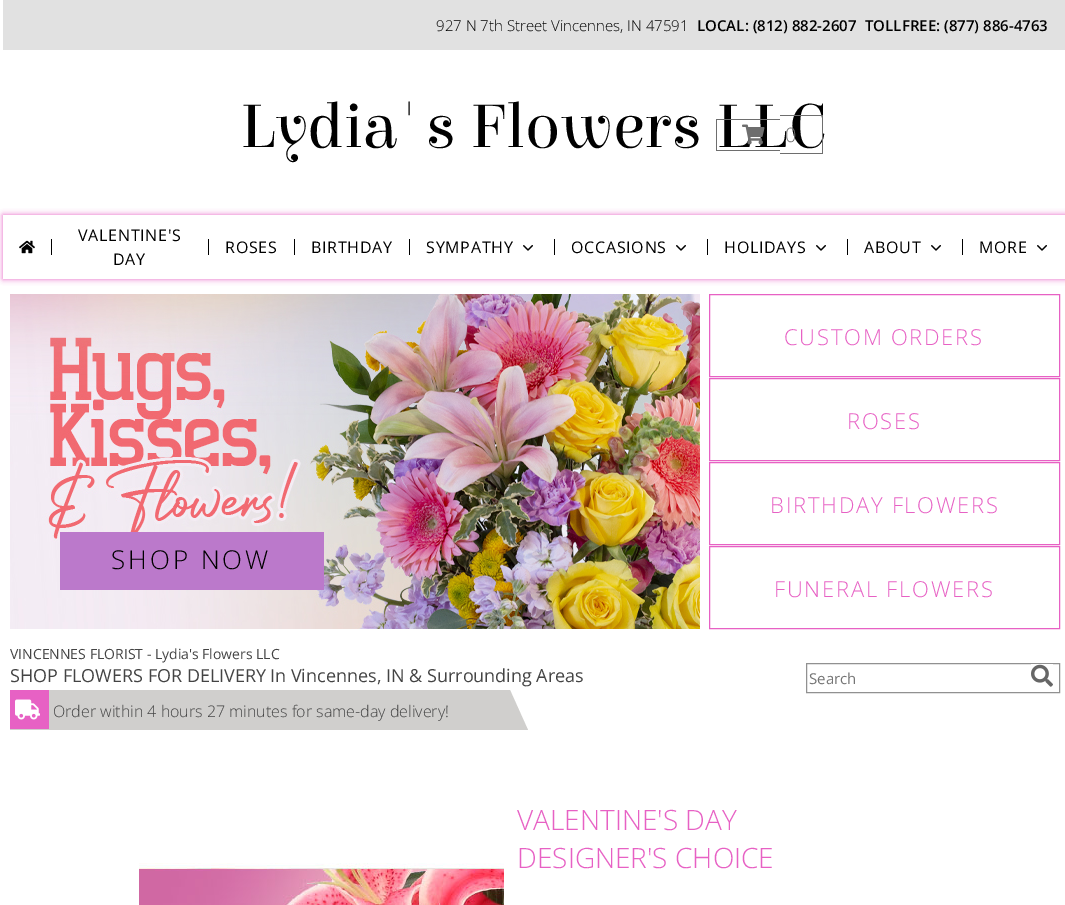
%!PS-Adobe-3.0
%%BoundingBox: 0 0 1065 905
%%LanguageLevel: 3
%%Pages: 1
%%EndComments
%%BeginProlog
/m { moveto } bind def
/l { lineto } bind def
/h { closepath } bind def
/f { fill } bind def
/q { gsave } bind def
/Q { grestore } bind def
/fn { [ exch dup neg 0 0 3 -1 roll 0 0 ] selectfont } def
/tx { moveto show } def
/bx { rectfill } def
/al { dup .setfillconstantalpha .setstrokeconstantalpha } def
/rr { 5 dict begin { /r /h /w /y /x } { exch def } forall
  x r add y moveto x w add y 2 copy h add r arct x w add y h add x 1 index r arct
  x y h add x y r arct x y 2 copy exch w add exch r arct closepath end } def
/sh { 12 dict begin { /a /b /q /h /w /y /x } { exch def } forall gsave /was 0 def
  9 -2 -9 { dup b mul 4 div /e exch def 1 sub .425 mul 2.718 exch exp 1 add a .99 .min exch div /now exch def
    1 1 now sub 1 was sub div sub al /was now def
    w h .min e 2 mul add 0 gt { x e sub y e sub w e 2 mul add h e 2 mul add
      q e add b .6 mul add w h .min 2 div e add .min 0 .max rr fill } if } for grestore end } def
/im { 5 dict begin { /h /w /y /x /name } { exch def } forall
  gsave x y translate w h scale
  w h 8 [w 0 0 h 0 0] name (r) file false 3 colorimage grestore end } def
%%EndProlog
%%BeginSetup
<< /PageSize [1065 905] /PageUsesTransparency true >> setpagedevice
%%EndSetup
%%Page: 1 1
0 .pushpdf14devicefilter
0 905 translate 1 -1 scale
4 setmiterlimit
1 setgray
0 0 1065 905 bx
0.882 setgray
3 0 1062 50 bx
/OpenSans-Light 15 fn
0 setgray
(927 N 7th Street Vincennes, IN 47591) 436 31 tx
/OpenSans-SemiBold 15 fn
(LOCAL: \(812\) 882-2607) 697 31 tx
(TOLLFREE: \(877\) 886-4763) 865 31 tx
/Elsie-Regular 65 fn
(Lydia's Flowers LLC) 240 147 tx
0.431 setgray
716 119 64 1 bx
716 150 64 1 bx
716 119 1 32 bx
780 115 43 1 bx
780 153 5 1 bx
822 115 1 39 bx
785 153 38 1 bx
(image0.raw) 742 124 23 21 im
/OpenSans-Light 20 fn
(0) 785 142 tx
q
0 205 m 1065 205 l 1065 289 l 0 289 l h 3 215 m 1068 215 l 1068 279 l 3 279 l h eoclip newpath
0.906 0.38 0.769 setrgbcolor
3 215 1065 64 0 3 1 sh
Q
(image1.raw) 19 240 16 14 im
0 setgray
51 239 1 16 bx
/OpenSans-Regular 16 fn
78 241 m 0.75 0 (VALENTINE'S) ashow
113 265 m 0.75 0 (DAY) ashow
208 239 1 16 bx
225 253 m 0.75 0 (ROSES) ashow
294 239 1 16 bx
311 253 m 0.75 0 (BIRTHDAY) ashow
409 239 1 16 bx
426 253 m 0.75 0 (SYMPATHY) ashow
(image2.raw) 523 245 10 6 im
554 239 1 16 bx
571 253 m 0.75 0 (OCCASIONS) ashow
(image2.raw) 676 245 10 6 im
707 239 1 16 bx
724 253 m 0.75 0 (HOLIDAYS) ashow
(image2.raw) 816 245 10 6 im
847 239 1 16 bx
864 253 m 0.75 0 (ABOUT) ashow
(image2.raw) 931 245 10 6 im
962 239 1 16 bx
979 253 m 0.75 0 (MORE) ashow
(image2.raw) 1037 245 10 6 im
0.906 0.38 0.769 setrgbcolor
709.5 294.5 350 82 rectstroke
/OpenSans-Light 22 fn
784 345 m 1.75 0 (CUSTOM ORDERS) ashow
709.5 378.5 350 82 rectstroke
847 429 m 1.75 0 (ROSES) ashow
709.5 462.5 350 82 rectstroke
770 513 m 1.75 0 (BIRTHDAY FLOWERS) ashow
(image3.raw) 10 294 690 335 im
0.733 0.475 0.796 setrgbcolor
60 532 264 58 bx
/OpenSans-Light 26 fn
0 setgray
111 569 m 3 0 (SHOP NOW) ashow
0.906 0.38 0.769 setrgbcolor
709.5 546.5 350 82 rectstroke
/OpenSans-Light 22 fn
774 597 m 1.75 0 (FUNERAL FLOWERS) ashow
/OpenSans-Regular 14 fn
0.267 setgray
(VINCENNES FLORIST - Lydia's Flowers LLC) 10 659 tx
/OpenSans-Regular 18 fn
(SHOP FLOWERS FOR DELIVERY) 10 682 tx
(In Vincennes, IN & Surrounding Areas) 270 682 tx
0.569 setgray
806.5 663.5 253 29 rectstroke
/OpenSans-Regular 15 fn
0.459 setgray
(Search) 809 684 tx
(image4.raw) 1031 664 22 23 im
0.816 0.812 0.804 setrgbcolor
528 730 m 10 730 l 10 690 l 510 690 l h f
0.906 0.38 0.769 setrgbcolor
10 690 39 39 bx
(image5.raw) 15 699 25 21 im
/OpenSans-Light 16 fn
0.267 setgray
(Order within 4 hours 27 minutes for same-day delivery!) 53 717 tx
/OpenSans-Light 28 fn
0.906 0.38 0.769 setrgbcolor
(VALENTINE'S DAY) 517 830 tx
(DESIGNER'S CHOICE) 517 868 tx
(image6.raw) 139 863 365 42 im
.poppdf14devicefilter showpage
%%EOF
